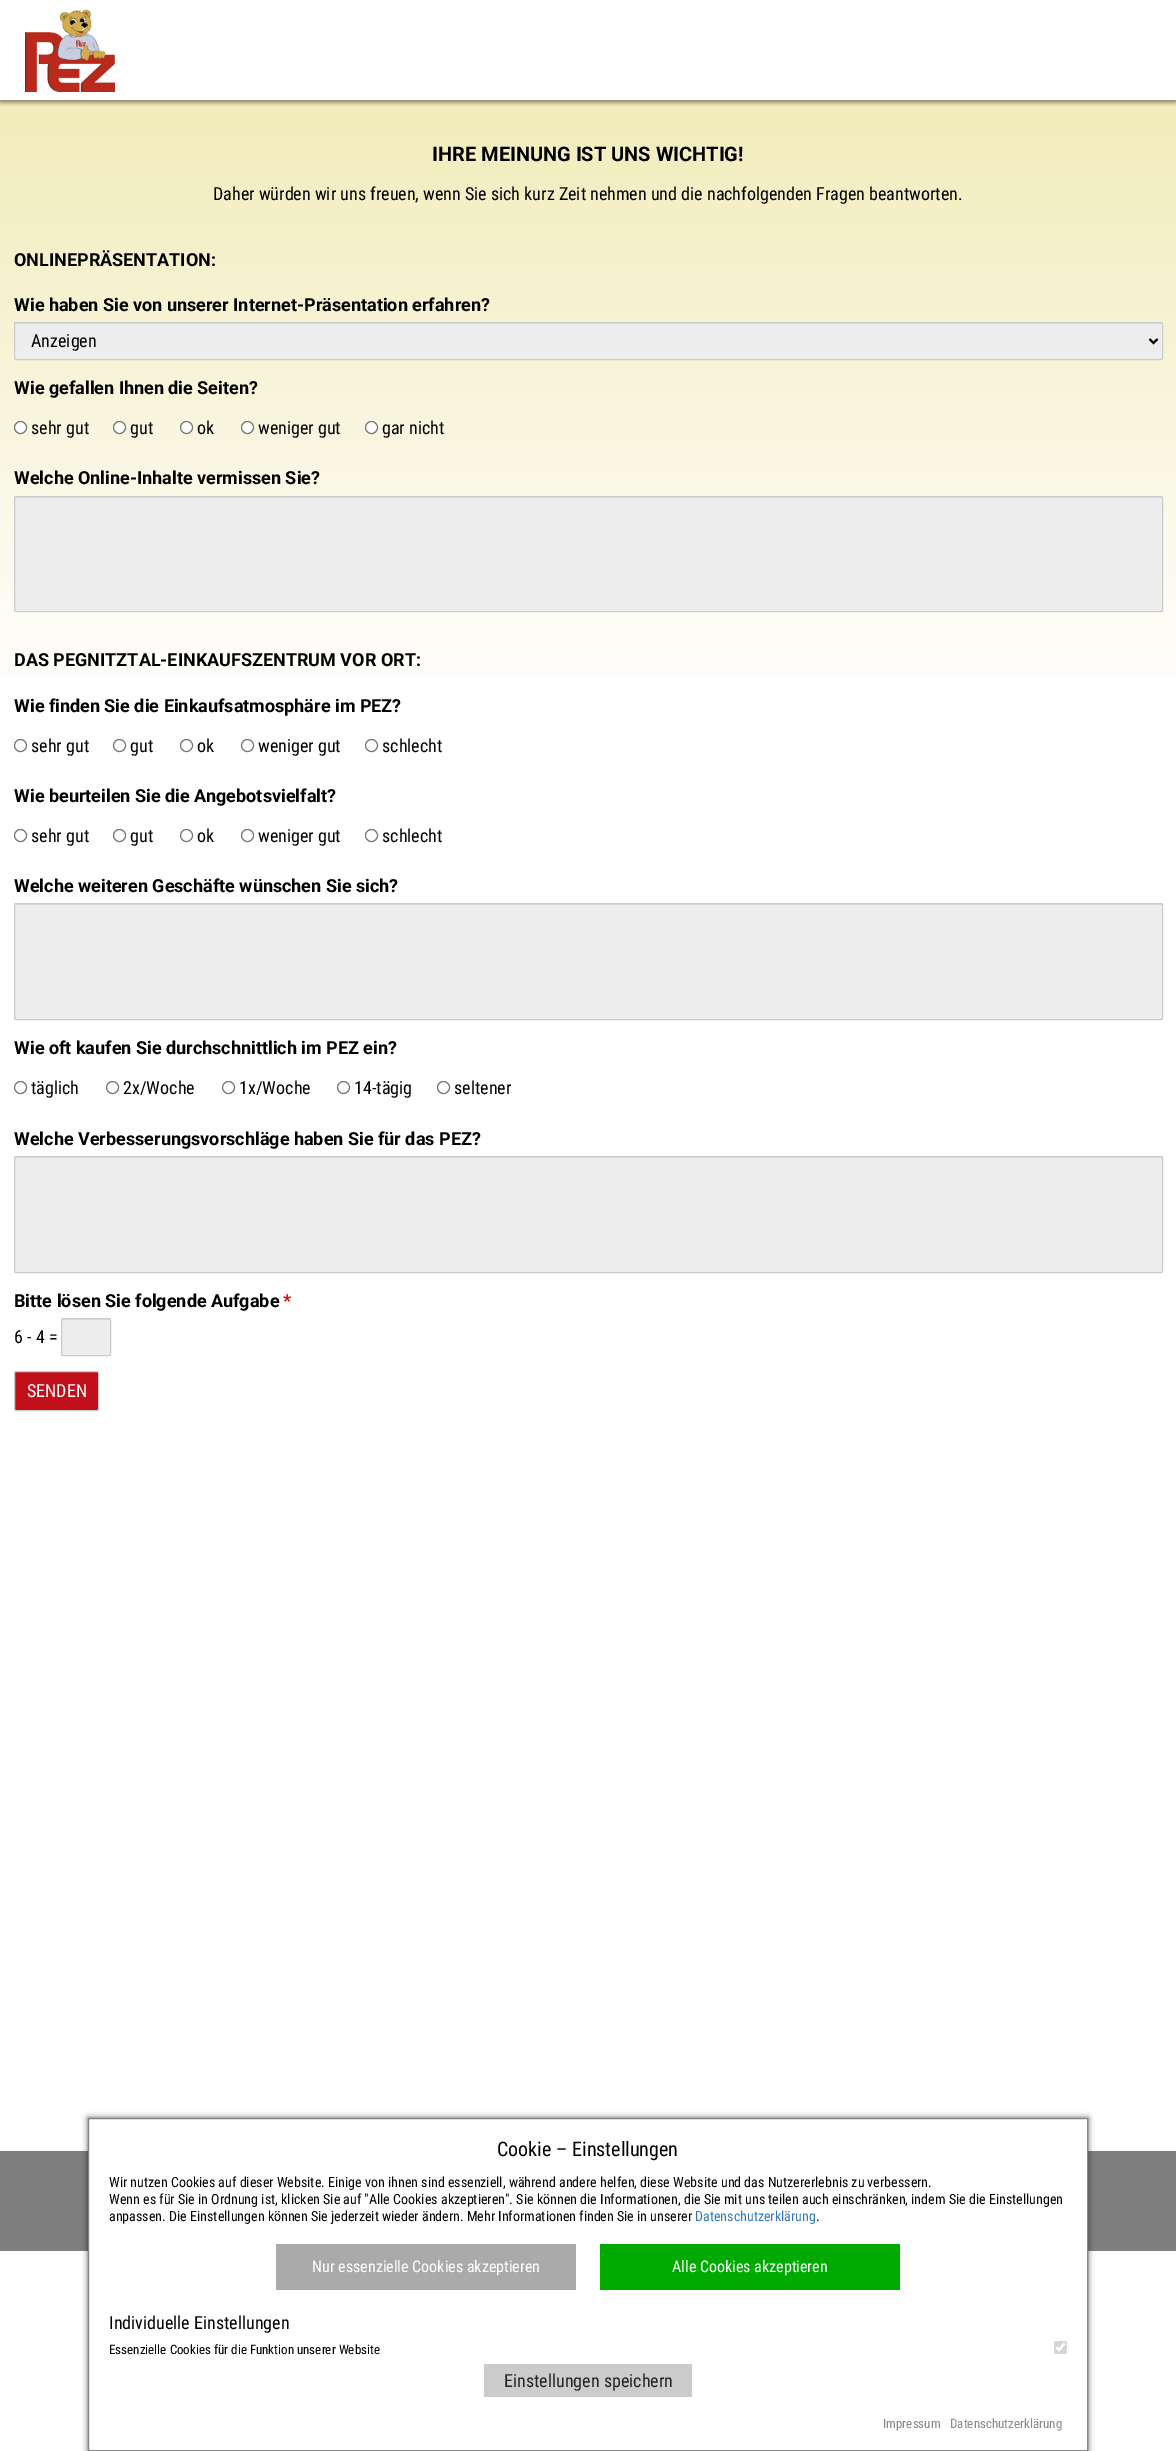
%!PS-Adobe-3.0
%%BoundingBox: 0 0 1176 2451
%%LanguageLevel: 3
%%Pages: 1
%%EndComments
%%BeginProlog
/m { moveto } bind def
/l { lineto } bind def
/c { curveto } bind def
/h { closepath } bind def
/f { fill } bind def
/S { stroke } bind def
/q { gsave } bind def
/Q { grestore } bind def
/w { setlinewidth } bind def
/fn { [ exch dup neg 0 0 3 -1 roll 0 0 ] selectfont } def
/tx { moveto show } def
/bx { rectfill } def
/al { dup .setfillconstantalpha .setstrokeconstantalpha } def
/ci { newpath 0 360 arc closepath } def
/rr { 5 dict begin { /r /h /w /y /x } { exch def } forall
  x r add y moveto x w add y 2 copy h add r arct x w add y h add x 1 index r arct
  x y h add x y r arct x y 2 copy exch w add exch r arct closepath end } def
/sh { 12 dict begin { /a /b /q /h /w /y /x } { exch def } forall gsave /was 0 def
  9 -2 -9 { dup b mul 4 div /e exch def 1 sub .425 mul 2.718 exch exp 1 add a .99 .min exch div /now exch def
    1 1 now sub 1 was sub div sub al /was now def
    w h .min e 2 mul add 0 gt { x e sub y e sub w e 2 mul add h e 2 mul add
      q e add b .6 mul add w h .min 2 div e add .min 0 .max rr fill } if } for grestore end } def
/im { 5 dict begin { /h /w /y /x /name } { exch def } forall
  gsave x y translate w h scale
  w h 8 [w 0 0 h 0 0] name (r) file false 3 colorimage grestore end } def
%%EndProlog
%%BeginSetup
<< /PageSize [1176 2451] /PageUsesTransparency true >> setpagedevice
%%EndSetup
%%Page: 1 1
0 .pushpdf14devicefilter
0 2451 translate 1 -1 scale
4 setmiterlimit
1 setgray
0 0 1176 2451 bx
q 0 100 m 1176 100 l 1176 678 l 0 678 l h clip newpath
<< /ShadingType 2 /ColorSpace /DeviceRGB /Coords [588 100 588 700] /Extend [true true] /Function << /FunctionType 2 /Domain [0 1] /C0 [0.949 0.925 0.729] /C1 [1 1 1] /N 1 >> >> shfill Q
q
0 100 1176 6 rectclip
0 setgray
0 2 1176 100 0 2.5 0.5 sh
Q
(image0.raw) 25 9 90 83 im
/Roboto-Bold 20 fn
0 setgray
(IHRE MEINUNG IST UNS WICHTIG!) 432 161 tx
/RobotoCondensed-Regular 18 fn
(Daher würden wir uns freuen, wenn Sie sich kurz Zeit nehmen und die nachfolgenden Fragen beantworten.) 213 200 tx
/Roboto-Bold 18 fn
(ONLINEPRÄSENTATION:) 14 266 tx
(Wie haben Sie von unserer Internet-Präsentation erfahren?) 14 311 tx
0.929 setgray
14 322 1149 38 2 rr f
0.859 setgray
16 324 m 1161 324 l 1162 324 1162 324 1162 325 c 1162 324 l 1161 323 l 15 323 l 15 325 l 15 324 15 324 16 324 c h f
0.8 setgray
14.5 322.5 1148 37 1.5 rr S
0 setgray
2 w
1149.5 339 m 1153.5 343 l 1157.5 339 l S
/RobotoCondensed-Regular 18 fn
(Anzeigen) 31 347 tx
/Roboto-Bold 18 fn
(Wie gefallen Ihnen die Seiten?) 14 394 tx
1 setgray
20.5 427.5 6 ci q f Q
0.463 setgray
1 w
S
/RobotoCondensed-Regular 18 fn
0 setgray
(sehr gut) 31 434 tx
1 setgray
119.5 427.5 6 ci q f Q
0.463 setgray
S
0 setgray
(gut) 130 434 tx
1 setgray
186.5 427.5 6 ci q f Q
0.463 setgray
S
0 setgray
(ok) 197 434 tx
1 setgray
247.5 427.5 6 ci q f Q
0.463 setgray
S
0 setgray
(weniger gut) 258 434 tx
1 setgray
371.5 427.5 6 ci q f Q
0.463 setgray
S
0 setgray
(gar nicht) 382 434 tx
/Roboto-Bold 18 fn
(Welche Online-Inhalte vermissen Sie?) 14 484 tx
0.929 setgray
14 496 1149 116 2 rr f
0.859 setgray
16 497 m 15 498 l 1161 498 l 1162 499 l 1162 498 1162 497 1161 497 c h f
0.8 setgray
14.5 496.5 1148 115 1.5 rr S
0 setgray
(DAS PEGNITZTAL-EINKAUFSZENTRUM VOR ORT:) 14 666 tx
(Wie finden Sie die Einkaufsatmosphäre im PEZ?) 14 712 tx
0.463 setgray
20.5 745.5 6 ci S
/RobotoCondensed-Regular 18 fn
0 setgray
(sehr gut) 31 752 tx
0.463 setgray
119.5 745.5 6 ci S
0 setgray
(gut) 130 752 tx
0.463 setgray
186.5 745.5 6 ci S
0 setgray
(ok) 197 752 tx
0.463 setgray
247.5 745.5 6 ci S
0 setgray
(weniger gut) 258 752 tx
0.463 setgray
371.5 745.5 6 ci S
0 setgray
(schlecht) 382 752 tx
/Roboto-Bold 18 fn
(Wie beurteilen Sie die Angebotsvielfalt?) 14 802 tx
0.463 setgray
20.5 835.5 6 ci S
/RobotoCondensed-Regular 18 fn
0 setgray
(sehr gut) 31 842 tx
0.463 setgray
119.5 835.5 6 ci S
0 setgray
(gut) 130 842 tx
0.463 setgray
186.5 835.5 6 ci S
0 setgray
(ok) 197 842 tx
0.463 setgray
247.5 835.5 6 ci S
0 setgray
(weniger gut) 258 842 tx
0.463 setgray
371.5 835.5 6 ci S
0 setgray
(schlecht) 382 842 tx
/Roboto-Bold 18 fn
(Welche weiteren Geschäfte wünschen Sie sich?) 14 892 tx
0.929 setgray
14 903 1149 117 2 rr f
0.859 setgray
16 904 m 15 905 l 1161 905 l 1162 906 l 1162 905 1162 904 1161 904 c h f
0.8 setgray
14.5 903.5 1148 116 1.5 rr S
0 setgray
(Wie oft kaufen Sie durchschnittlich im PEZ ein?) 14 1054 tx
0.463 setgray
20.5 1087.5 6 ci S
/RobotoCondensed-Regular 18 fn
0 setgray
(täglich) 31 1094 tx
0.463 setgray
112.5 1087.5 6 ci S
0 setgray
(2x/Woche) 123 1094 tx
0.463 setgray
228.5 1087.5 6 ci S
0 setgray
(1x/Woche) 239 1094 tx
0.463 setgray
343.5 1087.5 6 ci S
0 setgray
(14-tägig) 354 1094 tx
0.463 setgray
443.5 1087.5 6 ci S
0 setgray
(seltener) 454 1094 tx
/Roboto-Bold 18 fn
(Welche Verbesserungsvorschläge haben Sie für das PEZ?) 14 1145 tx
0.929 setgray
14 1156 1149 117 2 rr f
0.859 setgray
16 1157 m 15 1158 l 1161 1158 l 1162 1159 l 1162 1158 1162 1157 1161 1157 c h f
0.8 setgray
14.5 1156.5 1148 116 1.5 rr S
0 setgray
(Bitte lösen Sie folgende Aufgabe) 14 1307 tx
0.933 0 0 setrgbcolor
(*) 283 1307 tx
/RobotoCondensed-Regular 18 fn
0 setgray
(6 - 4 =) 14 1343 tx
0.929 setgray
61 1318 50 38 2 rr f
0.859 setgray
63 1320 m 109 1320 l 110 1320 110 1320 110 1321 c 110 1317 105 1319 101 1319 c 71 1319 l 67 1319 62 1317 62 1321 c 62 1320 62 1320 63 1320 c h f
0.8 setgray
61.5 1318.5 49 37 1.5 rr S
0.757 0.063 0.102 setrgbcolor
14.5 1371.5 84 39 1.5 rr q f Q
0.8 setgray
S
1 setgray
(SENDEN) 27 1397 tx
0.498 setgray
0 2151 1176 100 bx
0 setgray
88 2118 1000 333 0 3 0.7 sh
1 setgray
88.5 2118.5 m 1087.5 2118.5 l 1087.5 2450.5 l 88.5 2450.5 l h q f Q
0.533 setgray
S
/RobotoCondensed-Regular 20 fn
0 setgray
(Cookie – Einstellungen) 497 2156 tx
/RobotoCondensed-Regular 14 fn
(Wir nutzen Cookies auf dieser Website. Einige von ihnen sind essenziell, während andere helfen, diese Website und das Nutzererlebnis zu verbessern.) 109 2187 tx
(Wenn es für Sie in Ordnung ist, klicken Sie auf "Alle Cookies akzeptieren". Sie können die Informationen, die Sie mit uns teilen auch einschränken, indem Sie die Einstellungen) 109 2204 tx
(anpassen. Die Einstellungen können Sie jederzeit wieder ändern. Mehr Informationen finden Sie in unserer) 109 2221 tx
0.2 0.478 0.718 setrgbcolor
(Datenschutzerklärung) 695 2221 tx
0 setgray
(.) 816 2221 tx
0.667 setgray
276 2244 300 46 bx
/RobotoCondensed-Regular 16 fn
1 setgray
(Nur essenzielle Cookies akzeptieren) 312 2272 tx
0 0.667 0 setrgbcolor
600 2244 300 46 bx
1 setgray
(Alle Cookies akzeptieren) 672 2272 tx
/RobotoCondensed-Regular 18 fn
0 setgray
(Individuelle Einstellungen) 109 2329 tx
/RobotoCondensed-Regular 13 fn
(Essenzielle Cookies für die Funktion unserer Website) 109 2354 tx
0.839 setgray
1054 2341 13 13 2 rr f
1 setgray
2.1 w
1056.5 2347.5 m 1059 2350 l 1064.5 2343.5 l S
0.8 setgray
484 2364 208 33 bx
/RobotoCondensed-Regular 18 fn
0.133 setgray
(Einstellungen speichern) 504 2387 tx
/RobotoCondensed-Regular 13 fn
0.533 setgray
(Impressum) 883 2428 tx
(Datenschutzerklärung) 950 2428 tx
.poppdf14devicefilter showpage
%%EOF
